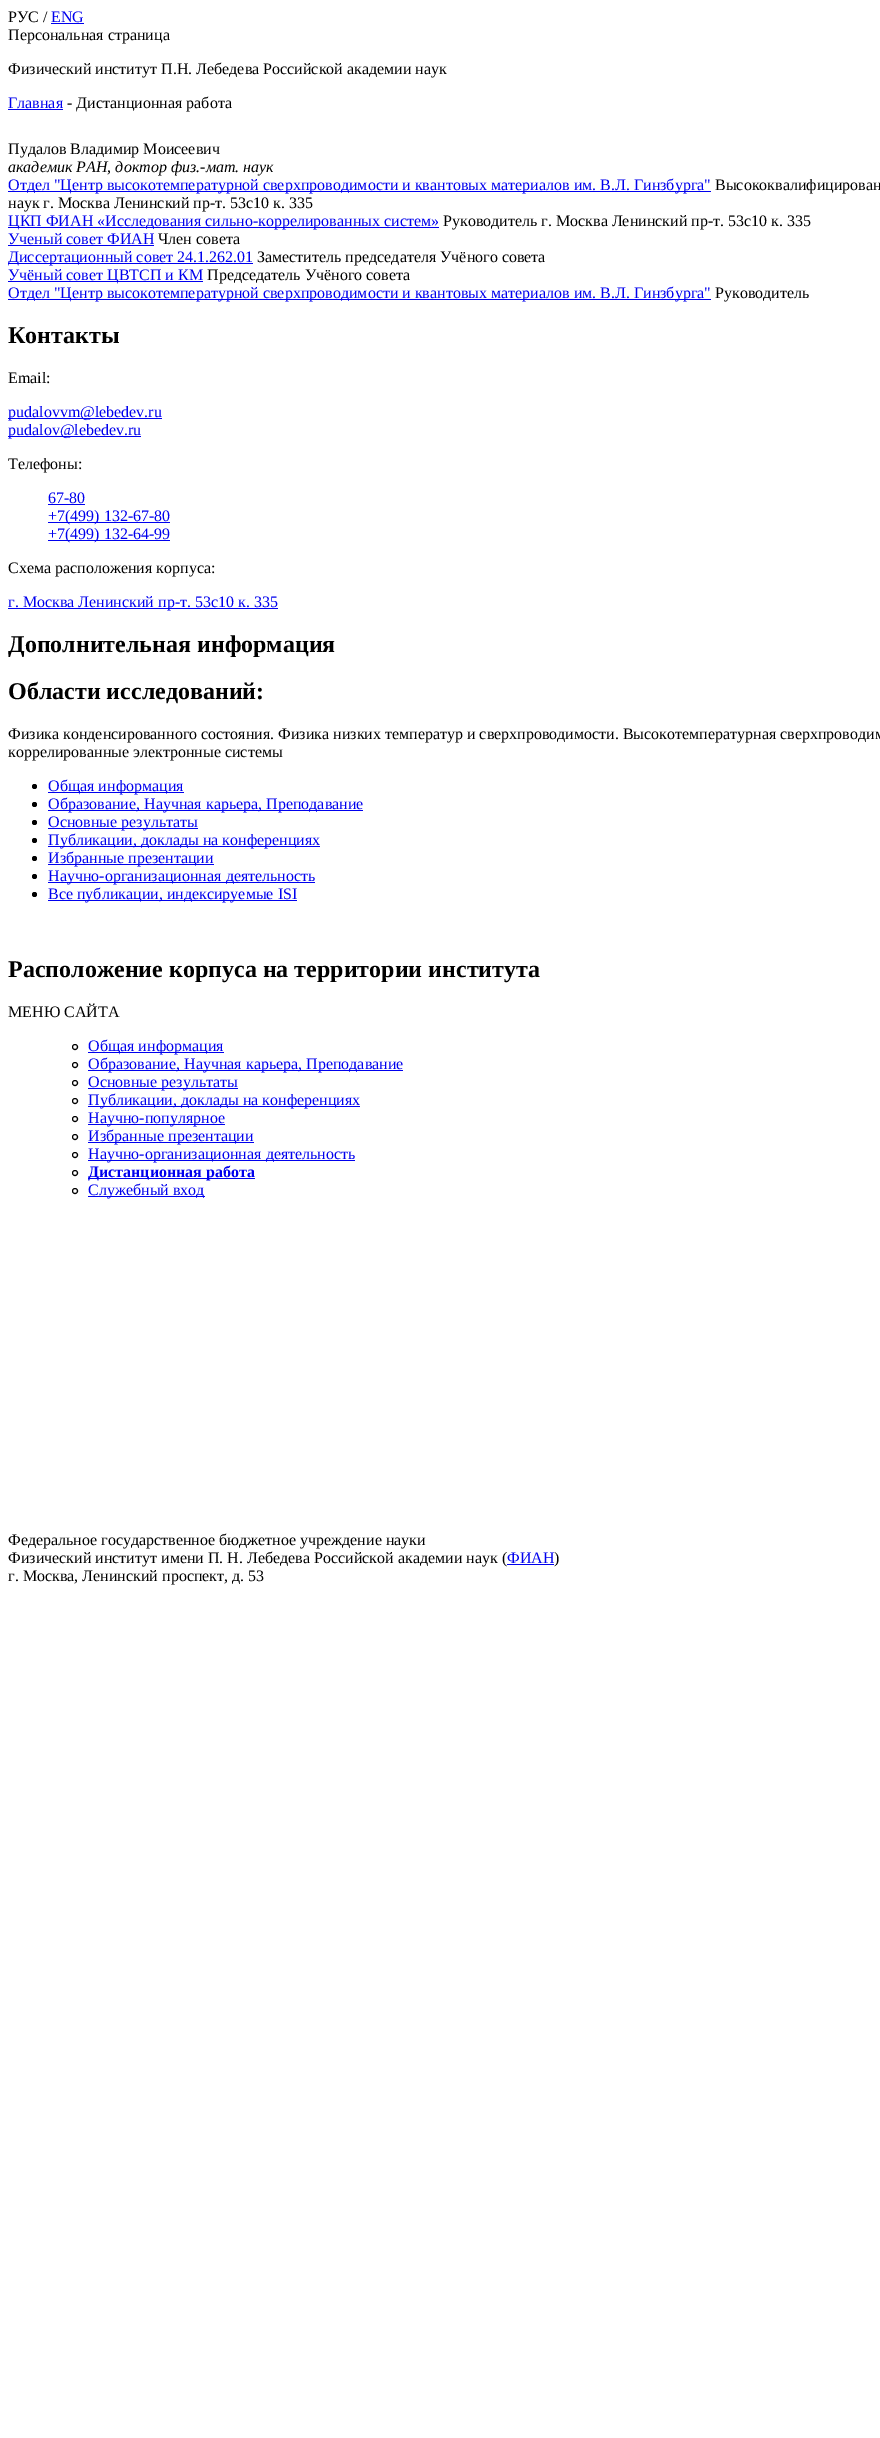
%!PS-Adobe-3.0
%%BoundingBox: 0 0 880 2438
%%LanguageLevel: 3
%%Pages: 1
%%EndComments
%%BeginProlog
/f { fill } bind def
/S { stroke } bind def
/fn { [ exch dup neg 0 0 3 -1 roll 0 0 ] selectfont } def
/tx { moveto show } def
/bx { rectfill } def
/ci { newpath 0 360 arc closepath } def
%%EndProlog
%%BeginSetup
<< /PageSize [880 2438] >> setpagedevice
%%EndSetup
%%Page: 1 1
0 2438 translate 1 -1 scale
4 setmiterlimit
1 setgray
0 0 880 2438 bx
/LiberationSerif-Regular 16 fn
0 setgray
(РУС /) 8 22 tx
0 0 0.933 setrgbcolor
(ENG) 51 22 tx
51 23 33 1 bx
0 setgray
(Персональная страница) 8 40 tx
(Физический институт П.Н. Лебедева Российской академии наук) 8 74 tx
0 0 0.933 setrgbcolor
(Главная) 8 108 tx
8 109 55 1 bx
0 setgray
(- Дистанционная работа) 67 108 tx
(Пудалов Владимир Моисеевич) 8 154 tx
/LiberationSerif-Italic 16 fn
(академик РАН, доктор физ.-мат. наук) 8 172 tx
0 0 0.933 setrgbcolor
8 191 703 1 bx
/LiberationSerif-Regular 16 fn
(Отдел "Центр высокотемпературной сверхпроводимости и квантовых материалов им. В.Л. Гинзбурга") 8 190 tx
0 setgray
(Высококвалифицирован) 715 190 tx
(наук г. Москва Ленинский пр-т. 53с10 к. 335) 8 208 tx
0 0 0.933 setrgbcolor
8 227 431 1 bx
(ЦКП ФИАН «Исследования сильно-коррелированных систем») 8 226 tx
0 setgray
(Руководитель г. Москва Ленинский пр-т. 53с10 к. 335) 443 226 tx
0 0 0.933 setrgbcolor
(Ученый совет ФИАН) 8 244 tx
8 245 146 1 bx
0 setgray
(Член совета) 158 244 tx
0 0 0.933 setrgbcolor
8 263 245 1 bx
(Диссертационный совет 24.1.262.01) 8 262 tx
0 setgray
(Заместитель председателя Учёного совета) 257 262 tx
0 0 0.933 setrgbcolor
8 281 195 1 bx
(Учёный совет ЦВТСП и КМ) 8 280 tx
0 setgray
(Председатель Учёного совета) 207 280 tx
0 0 0.933 setrgbcolor
8 299 703 1 bx
(Отдел "Центр высокотемпературной сверхпроводимости и квантовых материалов им. В.Л. Гинзбурга") 8 298 tx
0 setgray
(Руководитель) 715 298 tx
/LiberationSerif-Bold 24 fn
(Контакты) 8 343 tx
/LiberationSerif-Regular 16 fn
(Email:) 8 383 tx
0 0 0.933 setrgbcolor
8 418 154 1 bx
(pudalovvm@lebedev.ru) 8 417 tx
8 436 133 1 bx
(pudalov@lebedev.ru) 8 435 tx
0 setgray
(Телефоны:) 8 469 tx
0 0 0.933 setrgbcolor
(67-80) 48 503 tx
48 504 37 1 bx
48 522 122 1 bx
(+7\(499\) 132-67-80) 48 521 tx
48 540 122 1 bx
(+7\(499\) 132-64-99) 48 539 tx
0 setgray
(Схема расположения корпуса:) 8 573 tx
0 0 0.933 setrgbcolor
8 608 270 1 bx
(г. Москва Ленинский пр-т. 53с10 к. 335) 8 607 tx
/LiberationSerif-Bold 24 fn
0 setgray
(Дополнительная информация) 8 652 tx
(Области исследований:) 8 699 tx
/LiberationSerif-Regular 16 fn
(Физика конденсированного состояния. Физика низких температур и сверхпроводимости. Высокотемпературная сверхпроводим) 8 739 tx
(коррелированные электронные системы) 8 757 tx
34.5 786.5 2.5 ci f
0 0 0.933 setrgbcolor
48 792 136 1 bx
(Общая информация) 48 791 tx
0 setgray
34.5 804.5 2.5 ci f
0 0 0.933 setrgbcolor
48 810 315 1 bx
(Образование, Научная карьера, Преподавание) 48 809 tx
0 setgray
34.5 822.5 2.5 ci f
0 0 0.933 setrgbcolor
48 828 150 1 bx
(Основные результаты) 48 827 tx
0 setgray
34.5 840.5 2.5 ci f
0 0 0.933 setrgbcolor
48 846 272 1 bx
(Публикации, доклады на конференциях) 48 845 tx
0 setgray
34.5 858.5 2.5 ci f
0 0 0.933 setrgbcolor
48 864 166 1 bx
(Избранные презентации) 48 863 tx
0 setgray
34.5 876.5 2.5 ci f
0 0 0.933 setrgbcolor
48 882 267 1 bx
(Научно-организационная деятельность) 48 881 tx
0 setgray
34.5 894.5 2.5 ci f
0 0 0.933 setrgbcolor
48 900 249 1 bx
(Все публикации, индексируемые ISI) 48 899 tx
/LiberationSerif-Bold 24 fn
0 setgray
(Расположение корпуса на территории института) 8 977 tx
/LiberationSerif-Regular 16 fn
(МЕНЮ САЙТА) 8 1017 tx
75 1047 2.5 ci S
0 0 0.933 setrgbcolor
88 1052 136 1 bx
(Общая информация) 88 1051 tx
0 setgray
75 1065 2.5 ci S
0 0 0.933 setrgbcolor
88 1070 315 1 bx
(Образование, Научная карьера, Преподавание) 88 1069 tx
0 setgray
75 1083 2.5 ci S
0 0 0.933 setrgbcolor
88 1088 150 1 bx
(Основные результаты) 88 1087 tx
0 setgray
75 1101 2.5 ci S
0 0 0.933 setrgbcolor
88 1106 272 1 bx
(Публикации, доклады на конференциях) 88 1105 tx
0 setgray
75 1119 2.5 ci S
0 0 0.933 setrgbcolor
88 1124 137 1 bx
(Научно-популярное) 88 1123 tx
0 setgray
75 1137 2.5 ci S
0 0 0.933 setrgbcolor
88 1142 166 1 bx
(Избранные презентации) 88 1141 tx
0 setgray
75 1155 2.5 ci S
0 0 0.933 setrgbcolor
88 1160 267 1 bx
(Научно-организационная деятельность) 88 1159 tx
0 setgray
75 1173 2.5 ci S
0 0 0.933 setrgbcolor
88 1178 167 1 bx
/LiberationSerif-Bold 16 fn
(Дистанционная работа) 88 1177 tx
0 setgray
75 1191 2.5 ci S
0 0 0.933 setrgbcolor
88 1196 117 1 bx
/LiberationSerif-Regular 16 fn
(Служебный вход) 88 1195 tx
0 setgray
(Федеральное государственное бюджетное учреждение науки) 8 1545 tx
(Физический институт имени П. Н. Лебедева Российской академии наук \() 8 1563 tx
0 0 0.933 setrgbcolor
(ФИАН) 507 1563 tx
507 1564 47 1 bx
0 setgray
(\)) 554 1563 tx
(г. Москва, Ленинский проспект, д. 53) 8 1581 tx
showpage
%%EOF
